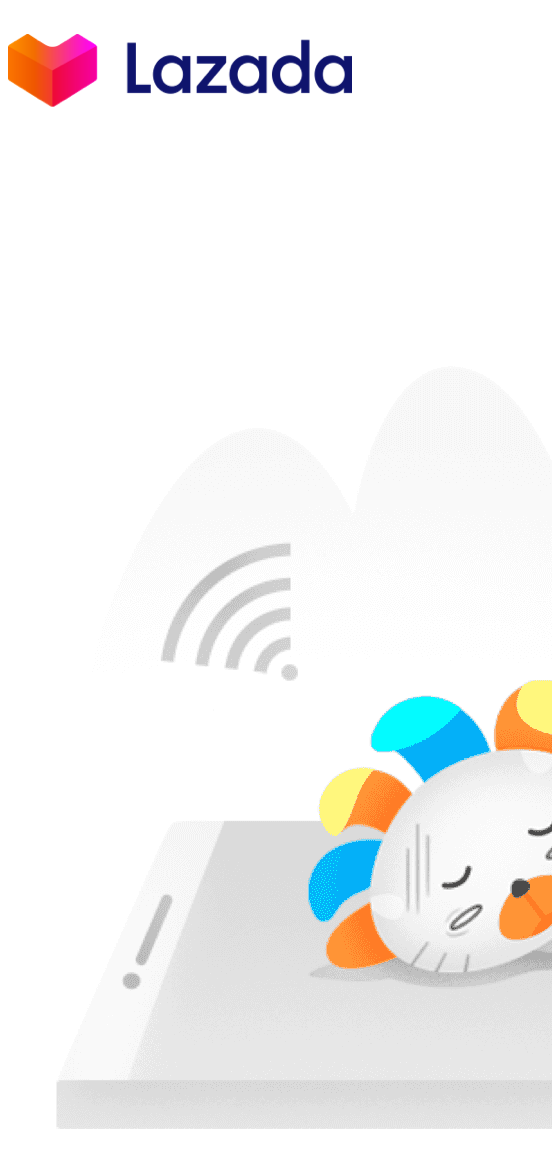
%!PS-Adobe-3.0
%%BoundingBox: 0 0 552 1173
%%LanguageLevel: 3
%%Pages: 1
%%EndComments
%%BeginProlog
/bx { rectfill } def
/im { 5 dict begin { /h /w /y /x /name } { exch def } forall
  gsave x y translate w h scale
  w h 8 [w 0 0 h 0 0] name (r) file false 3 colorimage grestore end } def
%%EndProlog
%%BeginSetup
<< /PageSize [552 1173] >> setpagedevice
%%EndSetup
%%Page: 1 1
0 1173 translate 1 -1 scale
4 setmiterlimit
1 setgray
0 0 552 1173 bx
(image0.raw) 8 34 344 73 im
(image1.raw) 56 366 496 763 im
showpage
%%EOF
